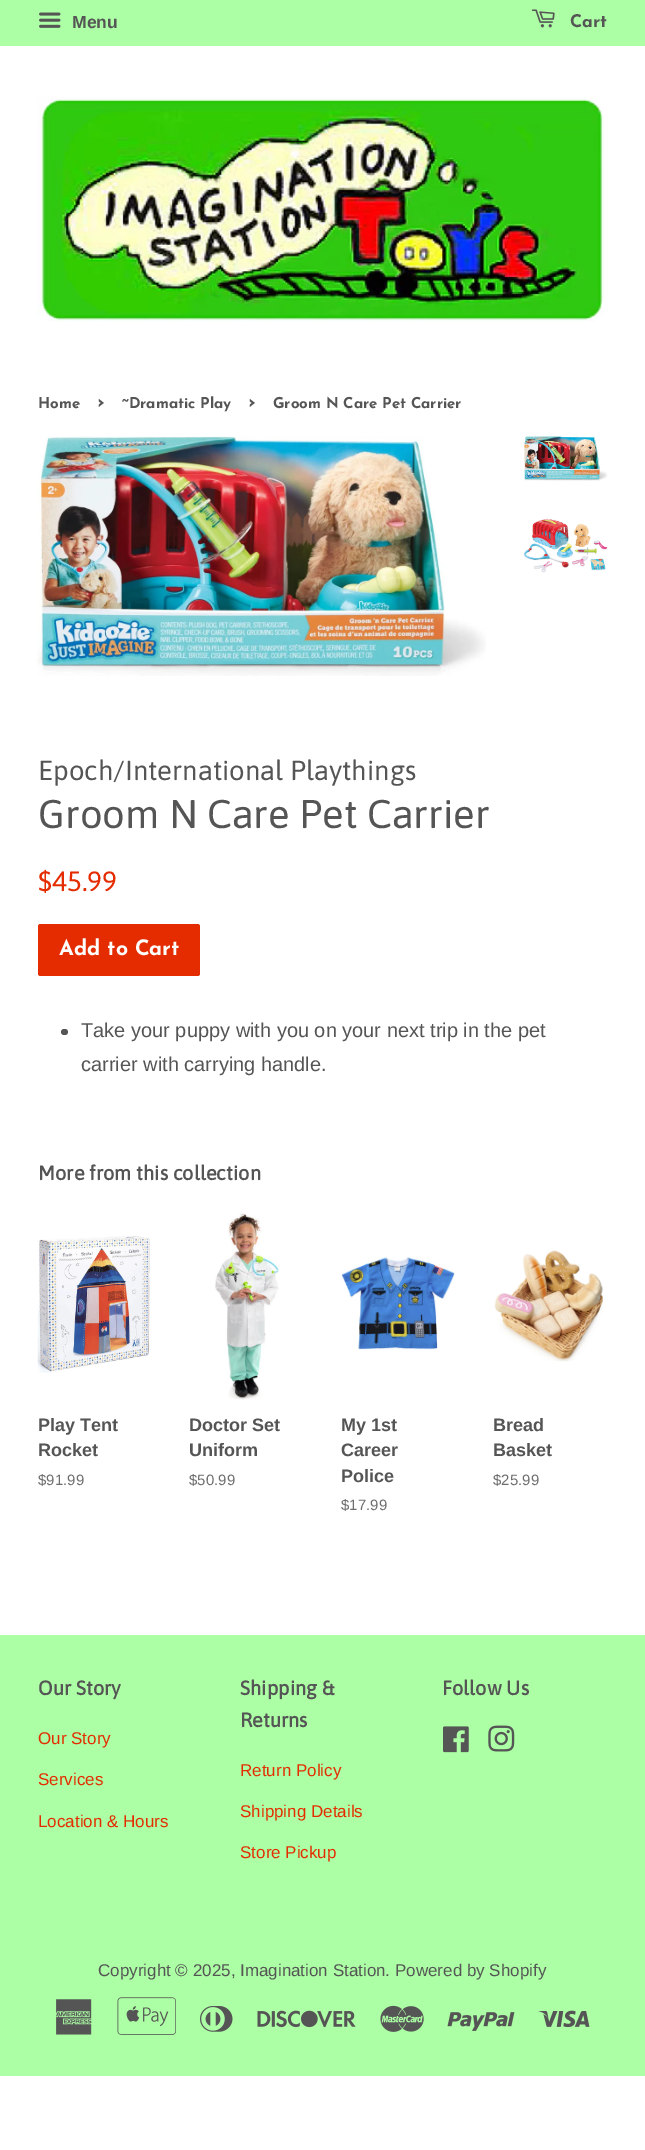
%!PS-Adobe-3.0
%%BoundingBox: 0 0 645 2150
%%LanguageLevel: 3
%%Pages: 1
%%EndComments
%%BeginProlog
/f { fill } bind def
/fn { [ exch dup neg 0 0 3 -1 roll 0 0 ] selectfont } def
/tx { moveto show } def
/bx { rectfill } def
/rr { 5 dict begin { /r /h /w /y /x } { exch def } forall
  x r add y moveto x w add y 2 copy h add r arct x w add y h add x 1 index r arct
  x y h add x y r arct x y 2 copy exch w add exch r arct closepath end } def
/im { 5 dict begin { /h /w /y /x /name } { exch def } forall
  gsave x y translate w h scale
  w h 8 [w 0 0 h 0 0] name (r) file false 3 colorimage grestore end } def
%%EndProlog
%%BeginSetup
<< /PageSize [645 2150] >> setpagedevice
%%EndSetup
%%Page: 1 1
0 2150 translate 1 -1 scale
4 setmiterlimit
1 setgray
0 0 645 2150 bx
0.675 1 0.643 setrgbcolor
0 0 645 46 bx
(image0.raw) 39 12 22 16 im
/LiberationSans-Bold 17.5 fn
0.333 setgray
(Menu) 72 28 tx
(image1.raw) 531 9 24 19 im
/JosefinSans-Thin 17.5 fn
(Cart) 570 27 tx
(image2.raw) 37 96 567 226 im
/JosefinSans-Thin 15 fn
(Home) 38 408 tx
/JosefinSans-Thin 21 fn
(›) 97 408 tx
/JosefinSans-Thin 15 fn
(~Dramatic Play) 122 408 tx
/JosefinSans-Thin 21 fn
(›) 248 408 tx
/JosefinSans-Thin 15 fn
(Groom N Care Pet Carrier) 273 408 tx
(image3.raw) 37 436 449 240 im
(image4.raw) 524 436 84 45 im
(image5.raw) 523 518 85 55 im
/Asap-Regular 27.5 fn
(Epoch/International Playthings) 38 780 tx
/Asap-Regular 40 fn
(Groom N Care Pet Carrier) 38 828 tx
/Asap-Regular 28 fn
0.894 0.173 0 setrgbcolor
($45.99) 38 891 tx
38 924 162 52 2.5 rr f
/JosefinSans-Thin 21.25 fn
1 setgray
(Add to Cart) 59 955 tx
0.333 setgray
61 1029 7 6 3 rr f
/LiberationSans-Regular 20 fn
(Take your puppy with you on your next trip in the pet) 81 1037 tx
(carrier with carrying handle.) 81 1071 tx
/Asap-Bold 20 fn
(More from this collection) 38 1180 tx
(image6.raw) 37 1235 113 138 im
/LiberationSans-Bold 18 fn
(Play Tent) 38 1431 tx
(Rocket) 38 1456 tx
/LiberationSans-Regular 15 fn
0.431 setgray
($91.99) 38 1485 tx
(image7.raw) 215 1212 64 188 im
/LiberationSans-Bold 18 fn
0.333 setgray
(Doctor Set) 189 1431 tx
(Uniform) 189 1456 tx
/LiberationSans-Regular 15 fn
0.431 setgray
($50.99) 189 1485 tx
(image8.raw) 341 1257 114 93 im
/LiberationSans-Bold 18 fn
0.333 setgray
(My 1st) 341 1431 tx
(Career) 341 1456 tx
(Police) 341 1482 tx
/LiberationSans-Regular 15 fn
0.431 setgray
($17.99) 341 1510 tx
(image9.raw) 494 1250 109 112 im
/LiberationSans-Bold 18 fn
0.333 setgray
(Bread) 493 1431 tx
(Basket) 493 1456 tx
/LiberationSans-Regular 15 fn
0.431 setgray
($25.99) 493 1485 tx
0.675 1 0.643 setrgbcolor
0 1635 645 441 bx
/Asap-Bold 20 fn
0.333 setgray
(Our Story) 38 1695 tx
/LiberationSans-Regular 17 fn
0.894 0.173 0 setrgbcolor
(Our Story) 38 1744 tx
(Services) 38 1785 tx
(Location & Hours) 38 1827 tx
/Asap-Bold 20 fn
0.333 setgray
(Shipping &) 240 1695 tx
(Returns) 240 1727 tx
/LiberationSans-Regular 17 fn
0.894 0.173 0 setrgbcolor
(Return Policy) 240 1776 tx
(Shipping Details) 240 1817 tx
(Store Pickup) 240 1858 tx
/Asap-Bold 20 fn
0.333 setgray
(Follow Us) 442 1695 tx
(image10.raw) 443 1726 26 27 im
(image11.raw) 488 1725 27 27 im
/LiberationSans-Regular 17 fn
(Copyright © 2025, Imagination Station. Powered by Shopify) 98 1976 tx
(image12.raw) 56 1999 36 36 im
(image13.raw) 117 1997 59 38 im
(image14.raw) 200 2006 33 26 im
(image15.raw) 257 2010 99 18 im
(image16.raw) 380 2005 44 27 im
(image17.raw) 447 2012 68 19 im
(image18.raw) 538 2010 52 18 im
showpage
%%EOF
